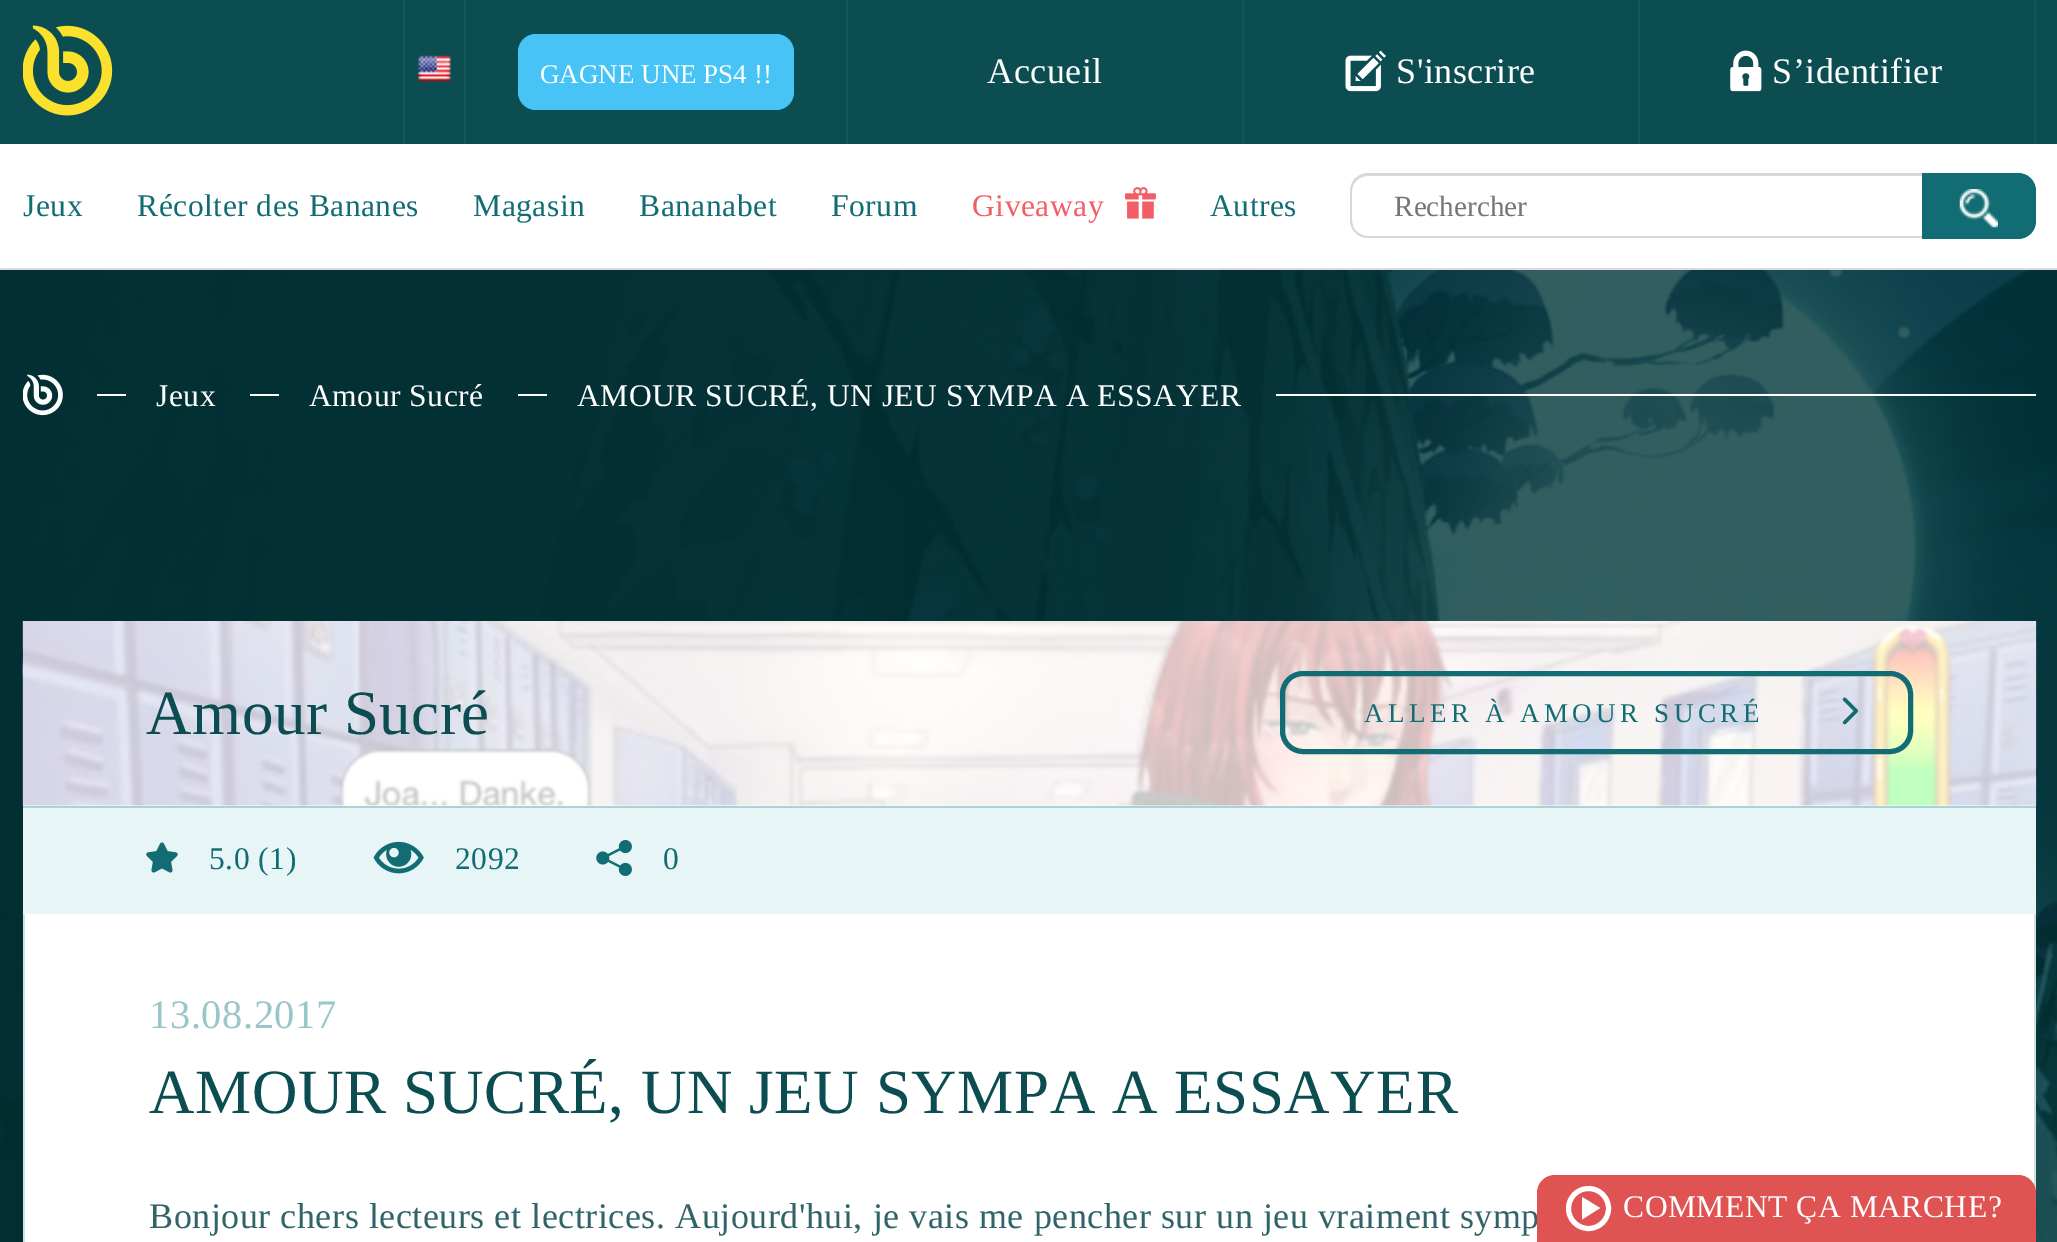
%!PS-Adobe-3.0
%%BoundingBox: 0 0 2057 1242
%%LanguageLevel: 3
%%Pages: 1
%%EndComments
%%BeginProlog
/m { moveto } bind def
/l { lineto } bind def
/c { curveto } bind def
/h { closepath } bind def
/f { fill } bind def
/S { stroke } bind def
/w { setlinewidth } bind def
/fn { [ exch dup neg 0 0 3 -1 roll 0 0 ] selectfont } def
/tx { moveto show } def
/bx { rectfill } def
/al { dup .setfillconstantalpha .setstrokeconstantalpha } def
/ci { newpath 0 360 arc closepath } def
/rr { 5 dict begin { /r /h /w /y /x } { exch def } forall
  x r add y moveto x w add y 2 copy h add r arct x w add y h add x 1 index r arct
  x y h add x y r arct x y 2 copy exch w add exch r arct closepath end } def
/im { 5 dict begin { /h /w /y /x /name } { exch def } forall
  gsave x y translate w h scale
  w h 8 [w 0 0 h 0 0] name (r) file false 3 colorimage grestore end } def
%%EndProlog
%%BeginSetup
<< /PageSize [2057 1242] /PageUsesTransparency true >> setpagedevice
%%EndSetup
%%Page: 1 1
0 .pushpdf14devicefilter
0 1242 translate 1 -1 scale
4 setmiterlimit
1 setgray
0 0 2057 1242 bx
0.043 0.302 0.318 setrgbcolor
0 0 2057 144 bx
(image0.raw) 23 25 90 91 im
0.059 0.349 0.369 setrgbcolor
2034 0 2 144 bx
403 0 2 144 bx
(image1.raw) 418 55 33 27 im
464 0 2 144 bx
0.278 0.769 0.961 setrgbcolor
518 34 276 76 18 rr f
/LiberationSerif-Regular 27 fn
1 setgray
(GAGNE UNE PS4 !!) 540 83 tx
0.059 0.349 0.369 setrgbcolor
846 0 2 144 bx
/LiberationSerif-Regular 36 fn
1 setgray
987 83 m 0.55 0 (Accueil) ashow
0.059 0.349 0.369 setrgbcolor
1242 0 2 144 bx
(image2.raw) 1345 50 41 42 im
1 setgray
1396 83 m 0.55 0 (S'inscrire) ashow
0.059 0.349 0.369 setrgbcolor
1638 0 2 144 bx
(image3.raw) 1730 50 32 42 im
1 setgray
1772 83 m 0.55 0 (S’identifier) ashow
/LiberationSerif-Regular 31.5 fn
0.067 0.427 0.451 setrgbcolor
23 216 m 0.55 0 (Jeux) ashow
137 216 m 0.55 0 (Récolter des Bananes) ashow
473 216 m 0.55 0 (Magasin) ashow
639 216 m 0.55 0 (Bananabet) ashow
831 216 m 0.55 0 (Forum) ashow
0.953 0.365 0.4 setrgbcolor
972 216 m 0.55 0 (Giveaway) ashow
(image4.raw) 1125 187 31 32 im
0.067 0.427 0.451 setrgbcolor
1210 216 m 0.55 0 (Autres) ashow
0.847 setgray
1368 173 m 1922 173 l 1922 238 l 1368 238 l 1358 238 1350 230 1350 220 c 1350 191 l 1350 181 1358 173 1368 173 c h 1368 176 m 1922 176 l 1922 236 l 1368 236 l 1359 236 1352 229 1352 220 c 1352 191 l 1352 183 1359 176 1368 176 c h eofill
/LiberationSerif-Regular 29.25 fn
0.459 setgray
(Rechercher) 1394 216 tx
0.067 0.427 0.451 setrgbcolor
1922 173 m 2018 173 l 2028 173 2036 181 2036 191 c 2036 221 l 2036 231 2028 239 2018 239 c 1922 239 l h f
(image5.raw) 1959 189 39 39 im
0.859 setgray
0 268 2057 2 bx
(image6.raw) 0 270 2057 972 im
(image7.raw) 23 374 40 42 im
1 setgray
97 394 29 2 bx
/LiberationSerif-Regular 31.5 fn
156 406 m 0.55 0 (Jeux) ashow
250 394 29 2 bx
309 406 m 0.55 0 (Amour Sucré) ashow
518 394 29 2 bx
577 406 m 0.55 0 (AMOUR SUCRÉ, UN JEU SYMPA A ESSAYER) ashow
1276 394 760 2 bx
23 805 2013 437 bx
(image8.raw) 22 621 2015 185 im
0.75 al
23 621 2013 185 bx
/LiberationSerif-Regular 63 fn
1 al
0.043 0.302 0.318 setrgbcolor
146 734 m 0.55 0 (Amour Sucré) ashow
0.067 0.427 0.451 setrgbcolor
5 w
1282.5 673.5 628 78 20.5 rr S
/LiberationSerif-Regular 27 fn
1364 722 m 4.5 0 (ALLER À AMOUR SUCRÉ) ashow
(image9.raw) 1842 697 16 28 im
0.906 0.961 0.965 setrgbcolor
23 808 2013 106 bx
0.663 0.831 0.843 setrgbcolor
23 806 2013 2 bx
(image10.raw) 146 842 32 31 im
/LiberationSerif-Regular 31.5 fn
0.067 0.427 0.451 setrgbcolor
209 869 m 0.55 0 (5.0 \(1\)) ashow
(image11.raw) 373 841 51 33 im
455 869 m 0.55 0 (2092) ashow
(image12.raw) 596 840 36 36 im
663 869 m 0.55 0 (0) ashow
0.82 0.878 0.878 setrgbcolor
2034 914 2 279 bx
23 914 2 328 bx
/LiberationSerif-Regular 40.5 fn
0.596 0.776 0.788 setrgbcolor
149 1028 m 0.55 0 (13.08.2017) ashow
/LiberationSerif-Regular 63 fn
0.043 0.302 0.318 setrgbcolor
149 1113 m 0.55 0 (AMOUR SUCRÉ, UN JEU SYMPA A ESSAYER) ashow
/LiberationSerif-Regular 36 fn
0.188 0.392 0.408 setrgbcolor
149 1228 m 0.55 0 (Bonjour chers lecteurs et lectrices. Aujourd'hui, je vais me pencher sur un jeu vraiment symp) ashow
0.878 0.325 0.325 setrgbcolor
1555 1175 m 2018 1175 l 2028 1175 2036 1183 2036 1193 c 2036 1242 l 1537 1242 l 1537 1193 l 1537 1183 1545 1175 1555 1175 c h f
1 setgray
1582 1219.5 m 1582 1197 l 1600 1208 l h f
1588.5 1208.5 20 ci S
/LiberationSerif-Regular 31.5 fn
1623 1217 m 0.55 0 (COMMENT ÇA MARCHE?) ashow
.poppdf14devicefilter showpage
%%EOF
